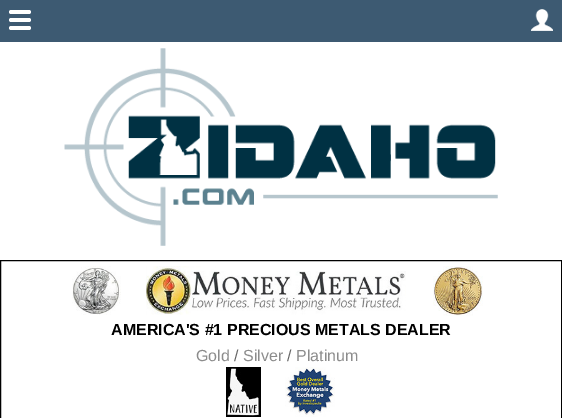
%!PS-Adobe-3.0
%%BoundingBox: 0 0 562 418
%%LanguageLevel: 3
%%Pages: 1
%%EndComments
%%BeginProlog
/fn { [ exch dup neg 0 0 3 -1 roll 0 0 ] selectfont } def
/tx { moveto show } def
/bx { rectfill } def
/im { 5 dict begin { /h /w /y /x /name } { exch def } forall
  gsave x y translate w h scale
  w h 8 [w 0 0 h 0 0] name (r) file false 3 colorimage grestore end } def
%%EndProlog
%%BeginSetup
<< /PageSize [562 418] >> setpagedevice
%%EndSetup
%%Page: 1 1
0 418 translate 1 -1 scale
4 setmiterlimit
1 setgray
0 0 562 418 bx
0.239 0.353 0.447 setrgbcolor
0 0 562 42 bx
(image0.raw) 9 10 22 20 im
(image1.raw) 531 9 22 22 im
(image2.raw) 64 48 434 198 im
0 setgray
0.5 260.5 561 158 rectstroke
(image3.raw) 72 266 49 49 im
(image4.raw) 146 266 260 49 im
(image5.raw) 433 266 50 50 im
/LiberationSans-Bold 16 fn
(AMERICA'S #1 PRECIOUS METALS DEALER) 111 335 tx
/LiberationSans-Regular 16 fn
0.549 setgray
(Gold) 196 361 tx
0.4 setgray
(/) 234 361 tx
0.549 setgray
(Silver) 243 361 tx
0.4 setgray
(/) 287 361 tx
0.549 setgray
(Platinum) 296 361 tx
(image6.raw) 226 367 35 50 im
(image7.raw) 285 367 50 50 im
showpage
%%EOF
